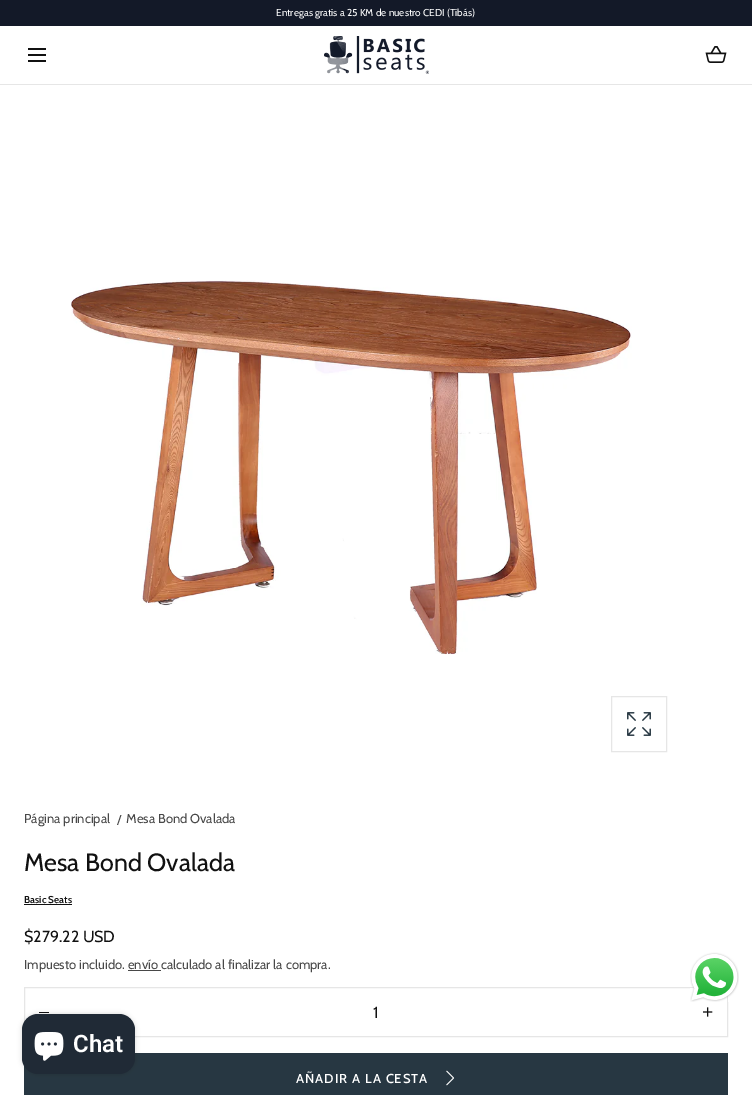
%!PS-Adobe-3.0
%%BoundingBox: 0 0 752 1095
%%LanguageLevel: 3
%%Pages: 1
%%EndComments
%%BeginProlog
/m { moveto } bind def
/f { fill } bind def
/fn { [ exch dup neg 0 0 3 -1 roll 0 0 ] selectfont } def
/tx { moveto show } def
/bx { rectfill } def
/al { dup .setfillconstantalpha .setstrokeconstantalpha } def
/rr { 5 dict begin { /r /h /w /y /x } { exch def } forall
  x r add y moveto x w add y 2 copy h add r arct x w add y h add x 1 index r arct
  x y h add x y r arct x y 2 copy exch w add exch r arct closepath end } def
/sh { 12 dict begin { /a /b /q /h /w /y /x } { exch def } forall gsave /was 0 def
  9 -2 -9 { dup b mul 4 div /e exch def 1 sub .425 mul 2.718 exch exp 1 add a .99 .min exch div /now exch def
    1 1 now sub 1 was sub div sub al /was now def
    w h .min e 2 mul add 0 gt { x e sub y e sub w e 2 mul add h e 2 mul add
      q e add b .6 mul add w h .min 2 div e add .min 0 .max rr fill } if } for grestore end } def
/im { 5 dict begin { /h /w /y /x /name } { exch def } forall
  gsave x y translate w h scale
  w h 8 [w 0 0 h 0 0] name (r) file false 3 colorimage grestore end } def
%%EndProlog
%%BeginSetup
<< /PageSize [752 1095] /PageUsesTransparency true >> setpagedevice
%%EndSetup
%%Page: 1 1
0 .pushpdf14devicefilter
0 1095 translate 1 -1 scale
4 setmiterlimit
1 setgray
0 0 752 1095 bx
0.075 0.098 0.157 setrgbcolor
0 0 752 26 bx
/Cabin-Regular 10 fn
1 setgray
(Entregas gratis a 25 KM de nuestro CEDI \(Tibás\)) 276 16 tx
0.902 setgray
0 84 752 1 bx
0.067 setgray
28 60 18 2 bx
28 54 18 2 bx
28 48 18 2 bx
(image0.raw) 324 36 105 38 im
(image1.raw) 705 46 22 17 im
(image2.raw) 71 280 561 375 im
0.902 setgray
611.5 696.5 55 55 rectstroke
(image3.raw) 627 712 24 24 im
/Cabin-Regular 13 fn
0.282 setgray
(Página principal) 24 823 tx
(/) 117 824 tx
(Mesa Bond Ovalada) 126 823 tx
/Cabin-Regular 25 fn
0.067 setgray
(Mesa Bond Ovalada) 24 871 tx
/Cabin-SemiBold 10 fn
(Basic Seats) 24 903 tx
24 904 48 1 bx
/Cabin-Regular 16 fn
($279.22 USD) 24 942 tx
/Cabin-Regular 13 fn
0.282 setgray
(Impuesto incluido. envío calculado al finalizar la compra.) 24 969 tx
128 970 33 1 bx
0.902 setgray
24.5 987.5 703 49 rectstroke
0.067 setgray
39 1012 10 1 bx
/Cabin-Regular 16 fn
(1) 373 1018 tx
(image4.raw) 703 1007 10 10 im
0.153 0.216 0.259 setrgbcolor
24 1053 704 42 bx
/Cabin-Medium 13 fn
1 setgray
296 1083 m 1 0 (AÑADIR A LA CESTA) ashow
(image5.raw) 446 1070 8 16 im
(image6.raw) 690 952 49 50 im
0 setgray
22 1014 113 60 16 2.5 0.15 sh
0.125 0.165 0.212 setrgbcolor
22 1014 113 60 16 rr f
(image7.raw) 34 1032 30 29 im
/Roboto-SemiBold 24 fn
1 setgray
(Chat) 73 1052 tx
.poppdf14devicefilter showpage
%%EOF
